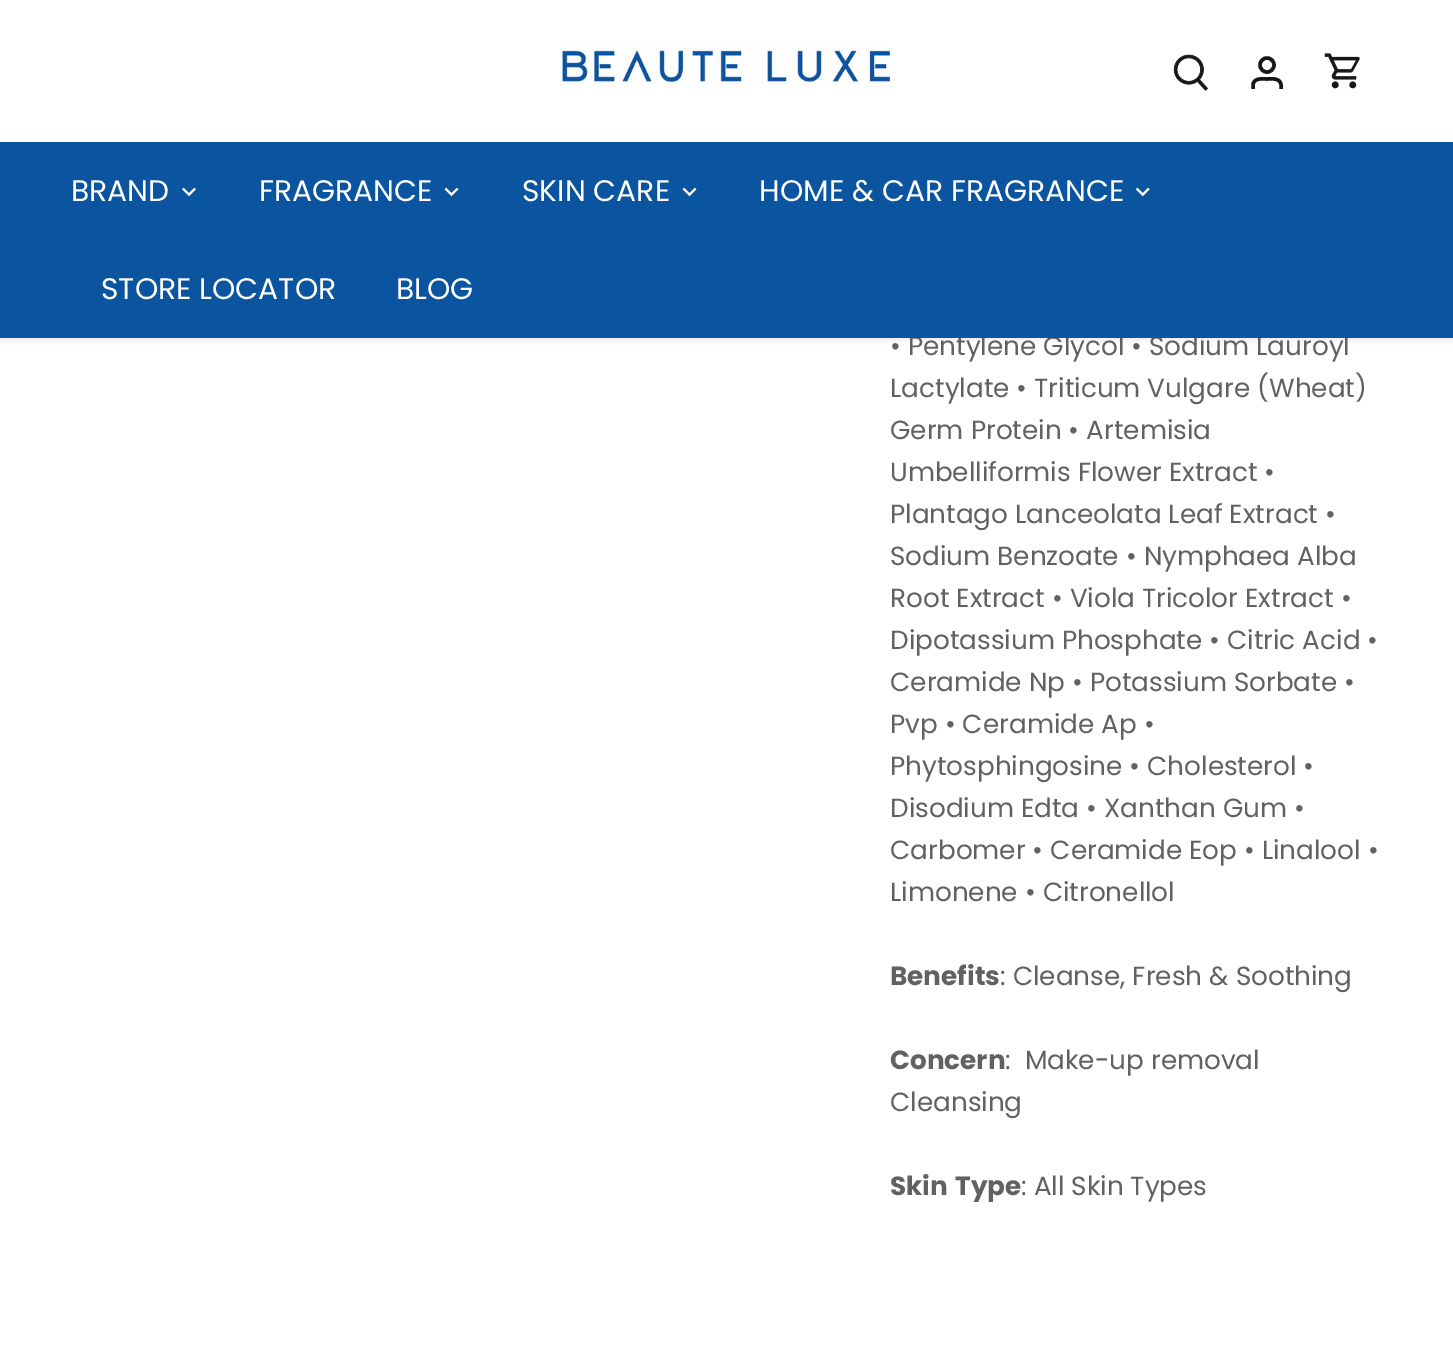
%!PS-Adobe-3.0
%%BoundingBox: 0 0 1453 1364
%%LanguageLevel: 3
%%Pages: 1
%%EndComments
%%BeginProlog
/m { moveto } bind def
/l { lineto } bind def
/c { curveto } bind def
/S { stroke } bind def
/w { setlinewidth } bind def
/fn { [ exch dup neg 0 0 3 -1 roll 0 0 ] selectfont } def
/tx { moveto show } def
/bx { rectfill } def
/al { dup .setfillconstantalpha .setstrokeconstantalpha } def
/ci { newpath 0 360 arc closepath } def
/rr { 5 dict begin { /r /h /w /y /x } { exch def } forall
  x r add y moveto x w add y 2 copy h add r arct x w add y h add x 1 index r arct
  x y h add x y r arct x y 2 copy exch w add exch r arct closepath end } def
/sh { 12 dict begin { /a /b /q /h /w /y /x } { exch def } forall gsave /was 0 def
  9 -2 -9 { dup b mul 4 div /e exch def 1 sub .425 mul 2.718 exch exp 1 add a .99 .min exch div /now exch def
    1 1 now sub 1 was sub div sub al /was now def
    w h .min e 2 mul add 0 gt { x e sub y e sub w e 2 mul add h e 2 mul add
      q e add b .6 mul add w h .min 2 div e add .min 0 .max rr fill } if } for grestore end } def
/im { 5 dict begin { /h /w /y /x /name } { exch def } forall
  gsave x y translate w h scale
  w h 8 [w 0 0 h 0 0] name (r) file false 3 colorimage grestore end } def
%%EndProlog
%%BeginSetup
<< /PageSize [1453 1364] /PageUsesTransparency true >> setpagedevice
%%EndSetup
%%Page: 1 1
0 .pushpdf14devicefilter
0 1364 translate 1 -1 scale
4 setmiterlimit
1 setgray
0 0 1453 1364 bx
0 setgray
-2 -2 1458 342 0 2.5 0.08 sh
/Poppins-Regular 26.25 fn
0.38 setgray
(• Pentylene Glycol • Sodium Lauroyl) 890 355 tx
0.043 0.329 0.627 setrgbcolor
0 142 1453 196 bx
1 setgray
0 0 1453 142 bx
(image0.raw) 561 46 332 39 im
(image1.raw) 1173 54 36 37 im
0.098 0.094 0.09 setrgbcolor
3.5 w
1267 65 7 ci S
1281 89 m 1281 84.5 l 1279.5 77.5 1272 79 1267 79 c 1262 79 1254.5 77.5 1253 84.5 c 1253 89 l S
(image2.raw) 1324 53 36 36 im
/Poppins-Regular 29.75 fn
1 setgray
(BRAND) 71 201 tx
(image3.raw) 182 187 14 10 im
(FRAGRANCE) 259 201 tx
(image4.raw) 444 187 15 10 im
(SKIN CARE) 522 201 tx
(image4.raw) 682 187 15 10 im
(HOME & CAR FRAGRANCE) 759 201 tx
(image5.raw) 1135 187 15 10 im
(STORE LOCATOR) 101 299 tx
(BLOG) 396 299 tx
/Poppins-Regular 26.25 fn
0.38 setgray
(Lactylate • Triticum Vulgare \(Wheat\)) 890 397 tx
(Germ Protein • Artemisia) 890 439 tx
(Umbelliformis Flower Extract •) 890 481 tx
(Plantago Lanceolata Leaf Extract •) 890 523 tx
(Sodium Benzoate • Nymphaea Alba) 890 565 tx
(Root Extract • Viola Tricolor Extract •) 890 607 tx
(Dipotassium Phosphate • Citric Acid •) 890 649 tx
(Ceramide Np • Potassium Sorbate •) 890 691 tx
(Pvp • Ceramide Ap •) 890 733 tx
(Phytosphingosine • Cholesterol •) 890 775 tx
(Disodium Edta • Xanthan Gum •) 890 817 tx
(Carbomer • Ceramide Eop • Linalool •) 890 859 tx
(Limonene • Citronellol) 890 901 tx
/Poppins-Bold 26.25 fn
(Benefits) 890 985 tx
/Poppins-Regular 26.25 fn
(: Cleanse, Fresh & Soothing) 1000 985 tx
/Poppins-Bold 26.25 fn
(Concern) 890 1069 tx
/Poppins-Regular 26.25 fn
(:  Make-up removal) 1005 1069 tx
(Cleansing) 890 1111 tx
/Poppins-Bold 26.25 fn
(Skin) 890 1195 tx
(Type) 955 1195 tx
/Poppins-Regular 26.25 fn
(: All Skin Types) 1021 1195 tx
.poppdf14devicefilter showpage
%%EOF
